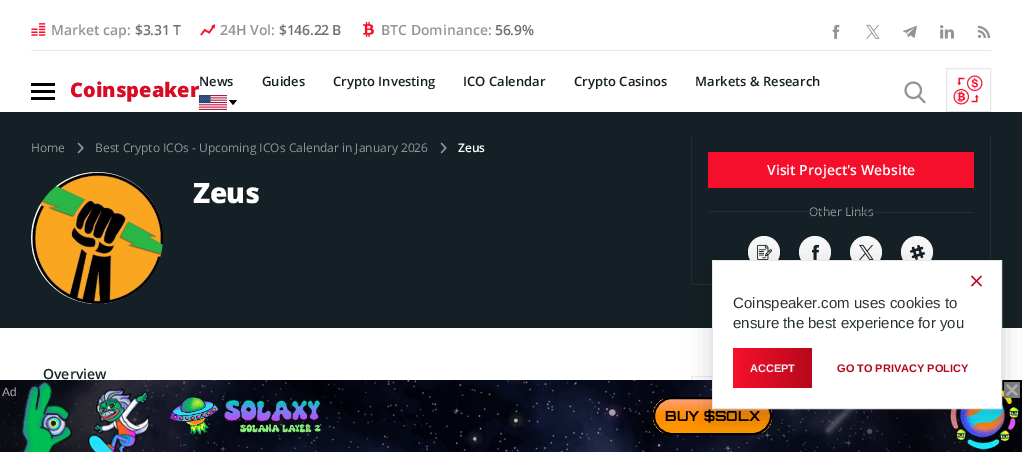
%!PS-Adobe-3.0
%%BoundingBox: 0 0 1022 452
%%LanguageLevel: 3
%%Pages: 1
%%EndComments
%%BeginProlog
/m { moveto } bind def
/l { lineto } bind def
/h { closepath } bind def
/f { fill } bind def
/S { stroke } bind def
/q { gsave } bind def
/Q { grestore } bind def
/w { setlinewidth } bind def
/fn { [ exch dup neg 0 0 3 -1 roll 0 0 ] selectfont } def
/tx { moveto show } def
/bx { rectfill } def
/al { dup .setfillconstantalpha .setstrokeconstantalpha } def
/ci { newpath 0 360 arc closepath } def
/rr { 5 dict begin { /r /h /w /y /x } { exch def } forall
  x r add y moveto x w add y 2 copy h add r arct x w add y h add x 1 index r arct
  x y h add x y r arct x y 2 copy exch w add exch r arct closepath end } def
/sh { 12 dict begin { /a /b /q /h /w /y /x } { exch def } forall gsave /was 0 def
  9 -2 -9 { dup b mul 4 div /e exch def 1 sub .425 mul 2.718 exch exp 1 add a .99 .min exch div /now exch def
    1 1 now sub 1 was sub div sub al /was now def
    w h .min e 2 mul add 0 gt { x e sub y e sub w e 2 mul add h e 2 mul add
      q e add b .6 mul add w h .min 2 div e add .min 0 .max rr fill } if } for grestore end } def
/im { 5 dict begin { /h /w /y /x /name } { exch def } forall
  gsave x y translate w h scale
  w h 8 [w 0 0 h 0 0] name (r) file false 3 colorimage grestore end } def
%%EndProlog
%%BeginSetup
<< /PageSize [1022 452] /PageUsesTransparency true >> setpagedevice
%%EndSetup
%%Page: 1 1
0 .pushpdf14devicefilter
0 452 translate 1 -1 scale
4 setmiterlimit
1 setgray
0 0 1022 452 bx
(image0.raw) 31 23 15 13 im
/OpenSans-SemiBold 14 fn
0.561 0.588 0.596 setrgbcolor
(Market cap:) 51 35 tx
0.42 0.451 0.463 setrgbcolor
135 35 m -0.25 0 ($3.31 T) ashow
(image1.raw) 200 24 16 12 im
0.561 0.588 0.596 setrgbcolor
(24H Vol:) 220 35 tx
0.42 0.451 0.463 setrgbcolor
279 35 m -0.25 0 ($146.22 B) ashow
(image2.raw) 363 21 11 16 im
0.561 0.588 0.596 setrgbcolor
(BTC Dominance:) 381 35 tx
0.42 0.451 0.463 setrgbcolor
495 35 m -0.25 0 (56.9%) ashow
(image3.raw) 832 24 8 15 im
(image4.raw) 866 24 14 15 im
(image5.raw) 903 25 14 13 im
(image6.raw) 940 25 14 14 im
(image7.raw) 977 25 14 13 im
0.902 setgray
31 50 960 1 bx
0 setgray
31 83 24 3 bx
31 90 24 3 bx
31 97 24 3 bx
/OpenSans-ExtraBold 20 fn
0.843 0.047 0.141 setrgbcolor
(Coinspeaker) 70 97 tx
/OpenSans-SemiBold 13 fn
0.078 0.125 0.145 setrgbcolor
(News) 199 86 tx
(Guides) 262 86 tx
(Crypto Investing) 333 86 tx
(ICO Calendar) 463 86 tx
(Crypto Casinos) 574 86 tx
(Markets & Research) 695 86 tx
(image8.raw) 199 95 28 15 im
0 setgray
229 100 m 237 100 l 233 105 l h f
(image9.raw) 904 81 22 23 im
0.902 setgray
946.5 68.5 44 43 rectstroke
(image10.raw) 953 75 30 30 im
0.078 0.125 0.145 setrgbcolor
0 112 1022 216 bx
/OpenSans-Regular 12 fn
0.561 0.588 0.596 setrgbcolor
(Home) 31 152 tx
(image11.raw) 77 142 7 12 im
(Best Crypto ICOs - Upcoming ICOs Calendar in January 2026) 95 152 tx
(image11.raw) 440 142 7 12 im
/OpenSans-SemiBold 12 fn
1 setgray
(Zeus) 458 152 tx
(image12.raw) 31 172 132 132 im
/OpenSans-ExtraBold 28 fn
193 203 m -0.5 0 (Zeus) ashow
0.137 0.18 0.2 setrgbcolor
990 136 1 124 bx
691 284 21 1 bx
691 136 1 149 bx
0.965 0.059 0.169 setrgbcolor
708 152 266 36 bx
/OpenSans-SemiBold 14 fn
1 setgray
(Visit Project's Website) 767 175 tx
/OpenSans-Regular 12 fn
0.561 0.588 0.596 setrgbcolor
(Other Links) 809 216 tx
0.137 0.18 0.2 setrgbcolor
708 211 121 1 bx
853 212 121 1 bx
0.969 setgray
764 252 16 ci f
(image13.raw) 757 244 15 16 im
815 252 16 ci f
(image14.raw) 812 244 7 16 im
866 252 16 ci f
(image15.raw) 859 244 15 16 im
917 252 16 ci f
(image16.raw) 910 244 15 16 im
/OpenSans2-SemiBold 14 fn
0.078 0.125 0.145 setrgbcolor
(Overview) 43 379 tx
0.922 setgray
691.5 376.5 299 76 rectstroke
0 setgray
0 380 1022 72 bx
(image17.raw) 0 380 1022 72 im
(image18.raw) 0 380 1022 72 im
(image23.raw) 950 390 70 60 im
0.502 setgray
1004 382 16 16 bx
(image19.raw) 1006 384 12 12 im
q
653 397 119 38 19 rr clip newpath
q 653 399 m 772 399 l 772 433 l 653 433 l h clip newpath
<< /ShadingType 2 /ColorSpace /DeviceRGB /Coords [713 399 713 433] /Extend [true true] /Function << /FunctionType 3 /Domain [0 1] /Functions [<< /FunctionType 2 /Domain [0 1] /C0 [1 0.627 0.478] /C1 [1 0.549 0] /N 1 >> << /FunctionType 2 /Domain [0 1] /C0 [1 0.549 0] /C1 [1 0.6 0] /N 1 >>] /Bounds [0.48] /Encode [0 1 0 1] >> >> shfill Q
Q
0 setgray
2 w
654 398 117 36 18 rr S
712 269 290 149 0 12 0.18 sh
0.902 setgray
1 w
712.5 260.5 289 148 rectstroke
1 setgray
713 261 288 147 bx
0.718 0.031 0.11 setrgbcolor
981 275.5 m 982 276.5 l 972 286.5 l 971 285.5 l h f
971 276.5 m 972 275.5 l 982 285.5 l 981 286.5 l h f
/LiberationSans-Regular 15 fn
0.165 0.204 0.224 setrgbcolor
(Coinspeaker.com uses cookies to) 733 308 tx
(ensure the best experience for you) 733 328 tx
q 733 348 m 812 348 l 812 388 l 733 388 l h clip newpath
<< /ShadingType 2 /ColorSpace /DeviceRGB /Coords [812 368 733 368] /Extend [true true] /Function << /FunctionType 2 /Domain [0 1] /C0 [0.718 0.031 0.11] /C1 [0.969 0.063 0.169] /N 1 >> >> shfill Q
/LiberationSans-Bold 11 fn
0.933 setgray
(ACCEPT) 750 372 tx
0.718 0.031 0.11 setrgbcolor
(GO TO PRIVACY POLICY) 837 372 tx
/LiberationSans-Regular 12 fn
0.686 0.675 0.675 setrgbcolor
(Ad) 2 396 tx
(image20.raw) 21 381 51 71 im
(image21.raw) 88 388 61 64 im
(image22.raw) 170 397 151 38 im
/Orbitron-Bold 14 fn
0 setgray
(BUY $SOLX) 665 421 tx
.poppdf14devicefilter showpage
%%EOF
